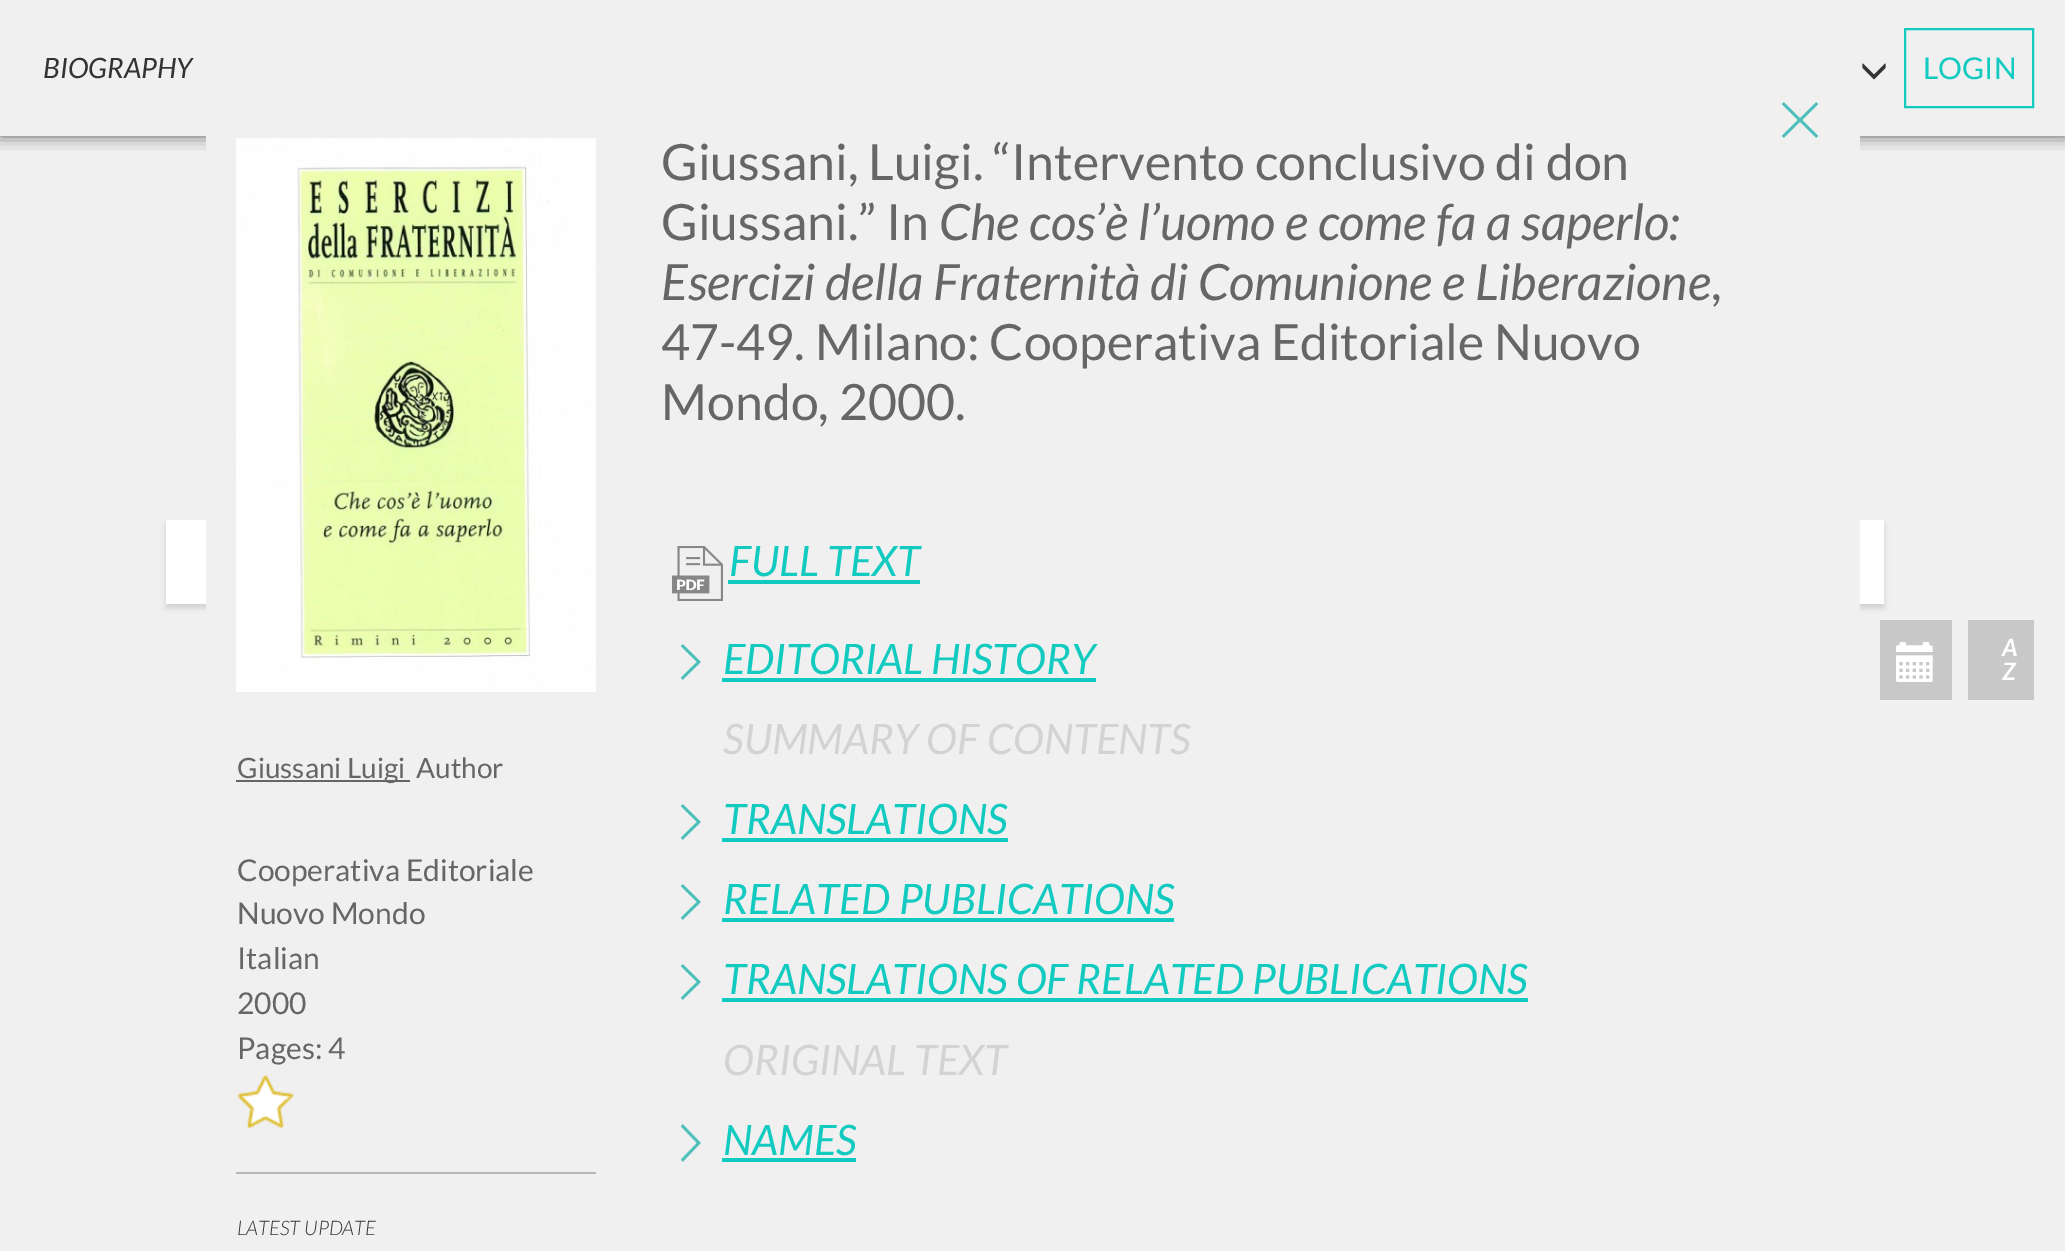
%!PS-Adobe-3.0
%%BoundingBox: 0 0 2065 1251
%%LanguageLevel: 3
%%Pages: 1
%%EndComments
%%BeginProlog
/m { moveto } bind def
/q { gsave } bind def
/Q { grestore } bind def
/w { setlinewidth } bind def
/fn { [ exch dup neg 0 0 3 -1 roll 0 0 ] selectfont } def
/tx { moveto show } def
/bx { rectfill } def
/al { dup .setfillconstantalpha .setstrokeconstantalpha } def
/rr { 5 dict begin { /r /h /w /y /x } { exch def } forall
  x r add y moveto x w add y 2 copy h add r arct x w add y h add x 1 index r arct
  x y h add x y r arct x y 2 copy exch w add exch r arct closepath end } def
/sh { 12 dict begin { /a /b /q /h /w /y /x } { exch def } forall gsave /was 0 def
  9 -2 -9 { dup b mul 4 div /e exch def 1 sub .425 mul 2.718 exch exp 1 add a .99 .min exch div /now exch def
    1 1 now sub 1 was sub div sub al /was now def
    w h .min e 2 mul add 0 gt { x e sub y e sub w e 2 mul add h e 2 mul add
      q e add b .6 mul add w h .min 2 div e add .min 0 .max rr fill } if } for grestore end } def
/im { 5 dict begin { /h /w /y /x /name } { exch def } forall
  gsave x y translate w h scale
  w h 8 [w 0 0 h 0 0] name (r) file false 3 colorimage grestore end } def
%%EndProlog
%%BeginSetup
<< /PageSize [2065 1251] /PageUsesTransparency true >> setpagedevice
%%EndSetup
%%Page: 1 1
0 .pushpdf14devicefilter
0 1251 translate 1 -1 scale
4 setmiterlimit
0.941 setgray
0 0 2065 1251 bx
q
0 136 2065 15 rectclip
0 setgray
0 0 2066 136 0 8 0.6 sh
Q
/Lato-Italic 28 fn
0.2 setgray
(BIOGRAPHY) 43 78 tx
(image0.raw) 1862 63 24 17 im
0.071 0.792 0.753 setrgbcolor
2 w
1905 29 128 78 rectstroke
/Lato-Regular 30 fn
(LOGIN) 1923 79 tx
0.812 setgray
166 524 370 84 0 3 1 sh
1 setgray
166 520 40 84 bx
0.812 setgray
1454 524 430 84 0 3 1 sh
1 setgray
1860 520 24 84 bx
0.784 setgray
1880 620 72 80 bx
(image1.raw) 1896 642 37 40 im
1968 620 66 80 bx
/Lato-BoldItalic 24 fn
1 setgray
2002 656 m 1 0 (A) ashow
2002 680 m 1 0 (Z) ashow
0.941 setgray
206 136 1654 476 bx
(image2.raw) 1781 102 38 36 im
(image3.raw) 236 138 360 554 im
0.4 setgray
236 780 174 2 bx
/Lato-Regular 28 fn
(Giussani Luigi) 237 778 tx
(Author) 416 778 tx
/Lato-Regular 30 fn
(Cooperativa Editoriale) 237 881 tx
(Nuovo Mondo) 237 924 tx
(Italian) 237 969 tx
(2000) 237 1014 tx
(Pages: 4) 237 1059 tx
(image4.raw) 237 1074 58 55 im
0.718 setgray
236 1172 360 2 bx
/Lato-LightItalic 20 fn
0.2 setgray
(LATEST UPDATE) 237 1235 tx
/Lato-Regular 50 fn
0.4 setgray
(Giussani, Luigi. “Intervento conclusivo di don) 661 180 tx
(Giussani.” In) 661 240 tx
/Lato-Italic 50 fn
(Che cos’è l’uomo e come fa a saperlo:) 939 240 tx
(Esercizi della Fraternità di Comunione e Liberazione) 661 300 tx
/Lato-Regular 50 fn
(,) 1711 300 tx
(47-49. Milano: Cooperativa Editoriale Nuovo) 661 360 tx
(Mondo, 2000.) 661 420 tx
(image5.raw) 672 546 51 55 im
/Lato-Italic 42 fn
0.071 0.792 0.753 setrgbcolor
(FULL TEXT) 729 576 tx
728 580 192 4 bx
(image6.raw) 680 644 21 36 im
(EDITORIAL HISTORY) 723 674 tx
722 678 374 4 bx
0.827 setgray
(SUMMARY OF CONTENTS) 723 754 tx
(image6.raw) 680 804 21 36 im
0.071 0.792 0.753 setrgbcolor
(TRANSLATIONS) 723 834 tx
722 838 286 4 bx
(image6.raw) 680 884 21 36 im
(RELATED PUBLICATIONS) 723 914 tx
722 918 452 4 bx
(image6.raw) 680 964 21 36 im
(TRANSLATIONS OF RELATED PUBLICATIONS) 723 994 tx
722 998 806 4 bx
0.827 setgray
(ORIGINAL TEXT) 723 1075 tx
(image7.raw) 680 1124 21 38 im
0.071 0.792 0.753 setrgbcolor
(NAMES) 723 1155 tx
722 1158 134 4 bx
.poppdf14devicefilter showpage
%%EOF
